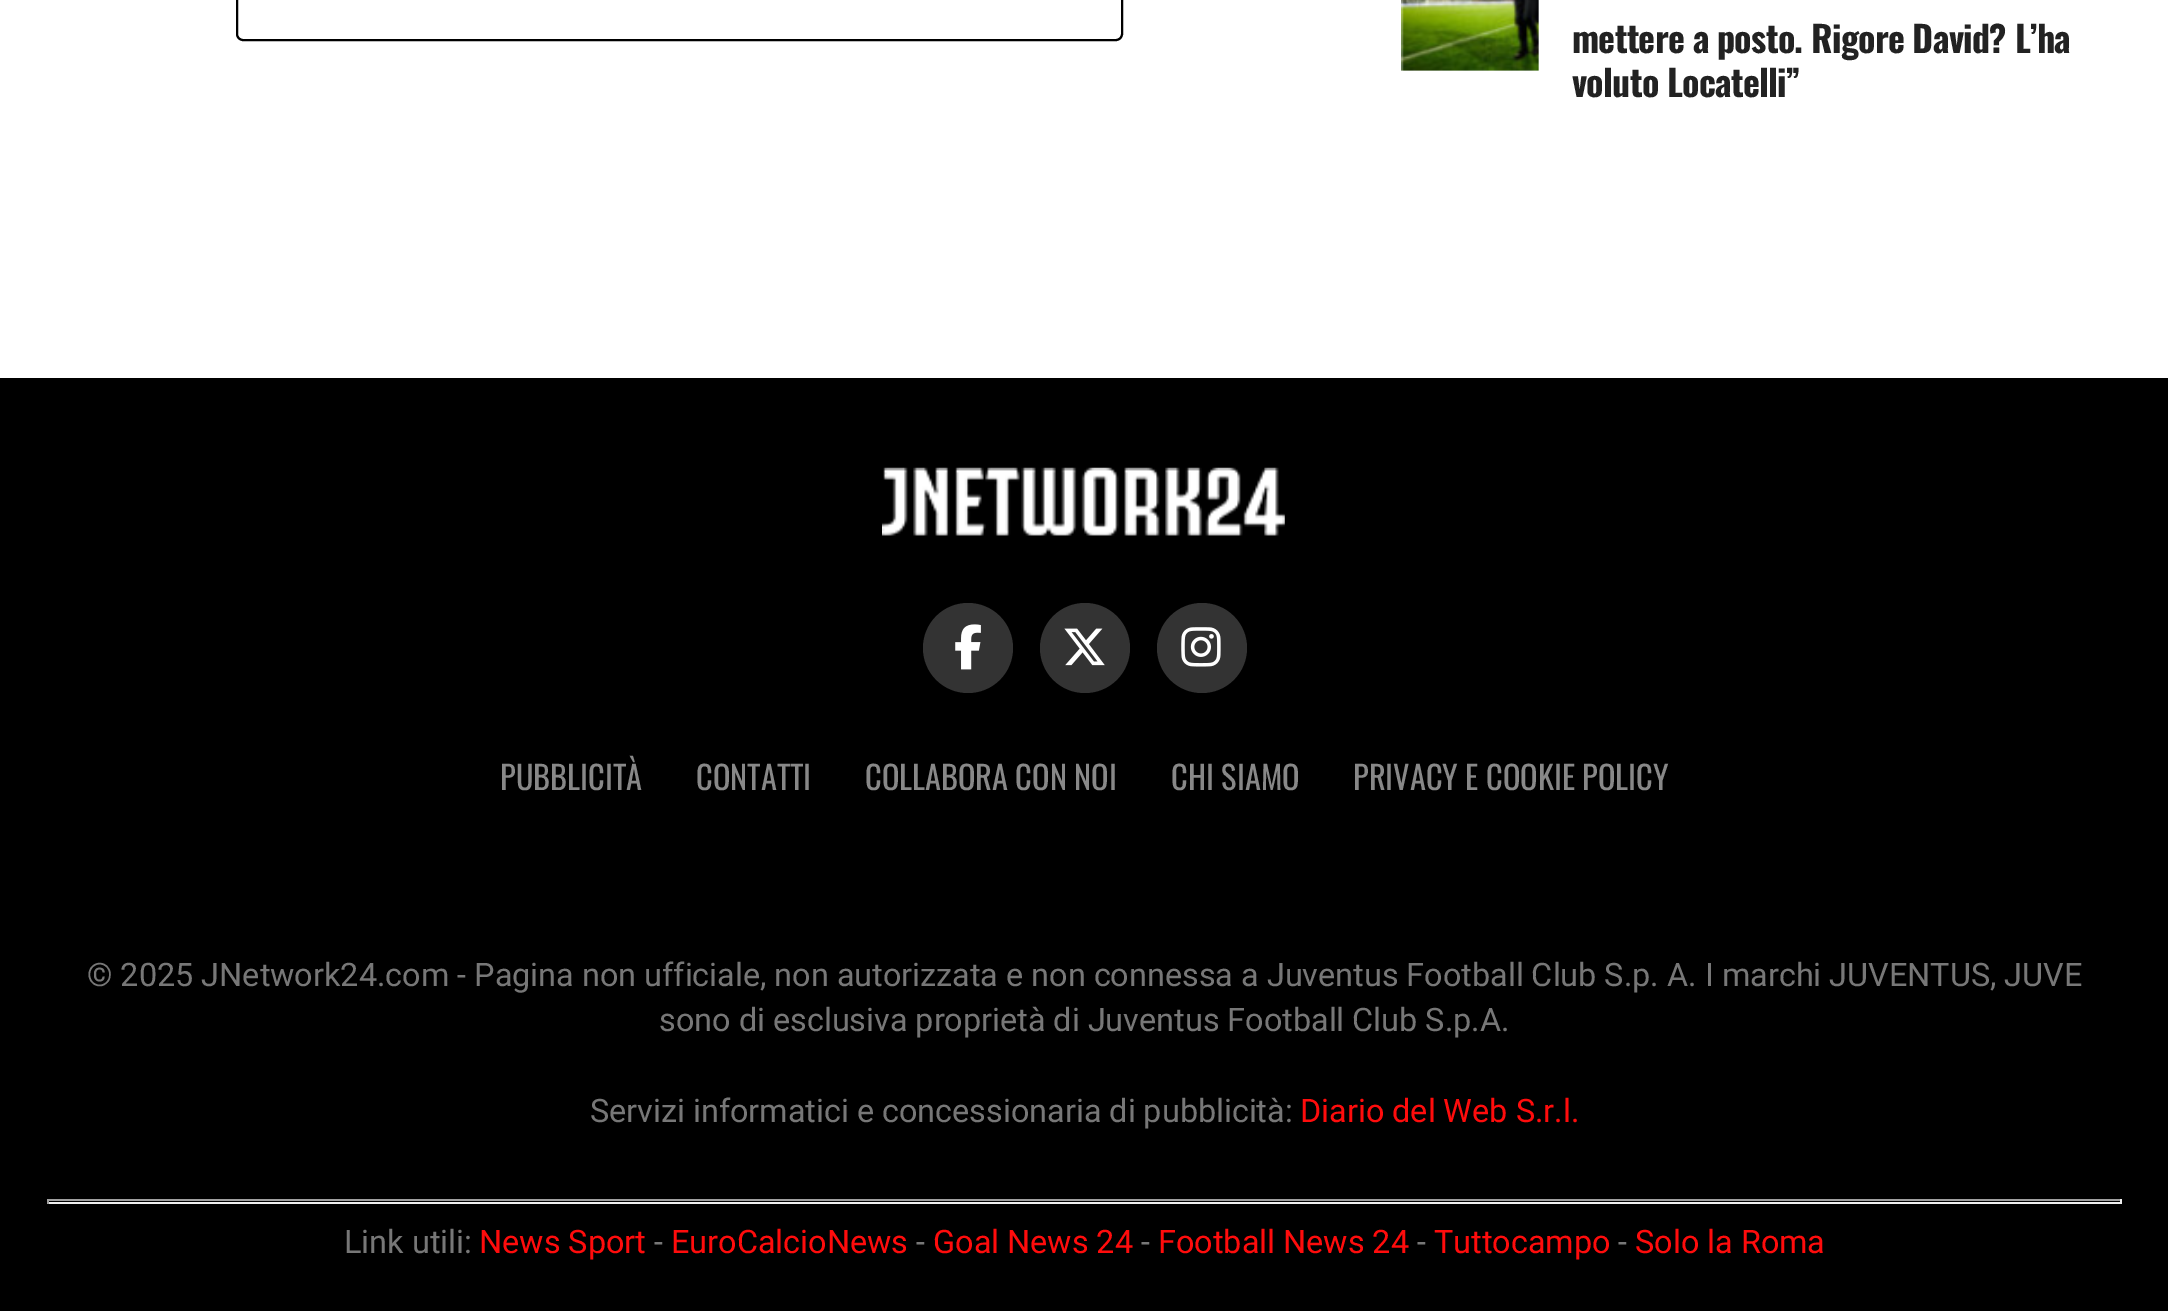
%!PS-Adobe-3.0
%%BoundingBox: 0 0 2168 1311
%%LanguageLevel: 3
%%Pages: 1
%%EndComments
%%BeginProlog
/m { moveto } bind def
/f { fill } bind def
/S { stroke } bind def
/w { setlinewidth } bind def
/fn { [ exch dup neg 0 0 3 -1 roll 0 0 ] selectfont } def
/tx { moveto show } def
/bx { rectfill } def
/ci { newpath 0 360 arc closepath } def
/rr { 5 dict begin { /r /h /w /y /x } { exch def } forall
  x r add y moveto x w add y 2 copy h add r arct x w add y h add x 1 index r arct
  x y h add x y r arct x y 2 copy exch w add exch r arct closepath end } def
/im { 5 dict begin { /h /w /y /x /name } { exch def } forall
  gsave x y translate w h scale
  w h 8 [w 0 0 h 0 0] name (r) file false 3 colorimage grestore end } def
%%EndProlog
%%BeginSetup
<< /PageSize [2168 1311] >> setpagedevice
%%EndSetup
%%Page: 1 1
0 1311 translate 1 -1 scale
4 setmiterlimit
1 setgray
0 0 2168 1311 bx
0 setgray
2 w
237 -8 885 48 6 rr S
(image0.raw) 1401 0 138 71 im
/Oswald-Bold 36 fn
0.133 setgray
1572 53 m -0.7 0 (mettere a posto. Rigore David? L’ha) ashow
1572 97 m -0.7 0 (voluto Locatelli”) ashow
0 setgray
0 378 2168 933 bx
(image1.raw) 882 467 403 69 im
0.2 setgray
968 648 45 ci f
(image2.raw) 955 624 26 46 im
1085 648 45 ci f
(image3.raw) 1064 628 41 38 im
1202 648 45 ci f
(image4.raw) 1181 627 40 40 im
/Oswald-Regular 32.4 fn
0.533 setgray
(PUBBLICITÀ) 500 790 tx
(CONTATTI) 696 790 tx
(COLLABORA CON NOI) 865 790 tx
(CHI SIAMO) 1171 790 tx
(PRIVACY E COOKIE POLICY) 1353 790 tx
/Roboto-Regular 32.4 fn
0.467 setgray
(© 2025 JNetwork24.com - Pagina non ufficiale, non autorizzata e non connessa a Juventus Football Club S.p. A. I marchi JUVENTUS, JUVE) 87 986 tx
(sono di esclusiva proprietà di Juventus Football Club S.p.A.) 659 1031 tx
(Servizi informatici e concessionaria di pubblicità:) 590 1122 tx
1 0.047 0.047 setrgbcolor
(Diario del Web S.r.l.) 1300 1122 tx
0.624 setgray
47 1199 2075 2 bx
0.933 setgray
2120 1199 2 5 bx
47 1202 2075 2 bx
0.624 setgray
47 1199 2 5 bx
0.467 setgray
(Link utili:) 344 1253 tx
1 0.047 0.047 setrgbcolor
(News Sport) 479 1253 tx
0.467 setgray
(-) 654 1253 tx
1 0.047 0.047 setrgbcolor
(EuroCalcioNews) 671 1253 tx
0.467 setgray
(-) 916 1253 tx
1 0.047 0.047 setrgbcolor
(Goal News 24) 933 1253 tx
0.467 setgray
(-) 1141 1253 tx
1 0.047 0.047 setrgbcolor
(Football News 24) 1158 1253 tx
0.467 setgray
(-) 1417 1253 tx
1 0.047 0.047 setrgbcolor
(Tuttocampo) 1434 1253 tx
0.467 setgray
(-) 1618 1253 tx
1 0.047 0.047 setrgbcolor
(Solo la Roma) 1635 1253 tx
showpage
%%EOF
